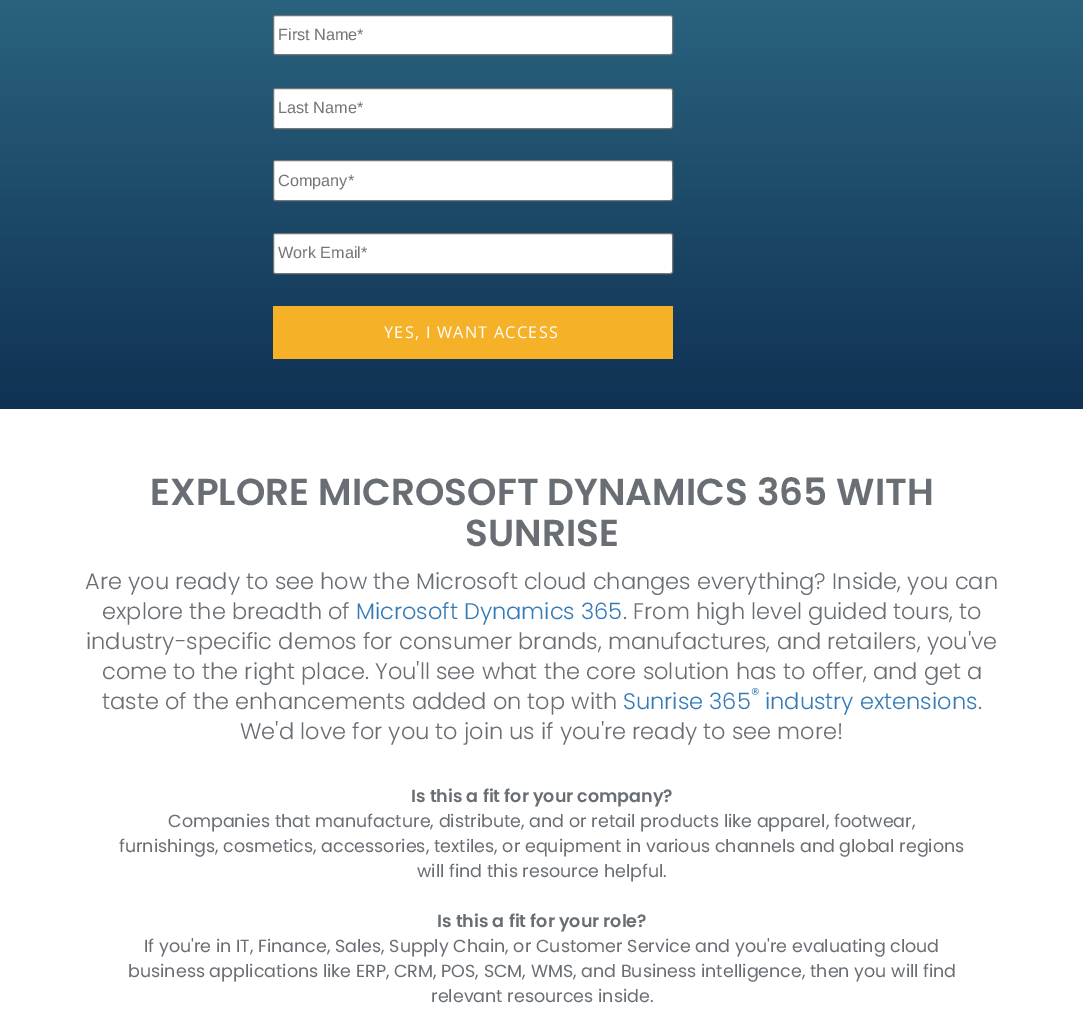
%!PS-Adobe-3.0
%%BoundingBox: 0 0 1083 1027
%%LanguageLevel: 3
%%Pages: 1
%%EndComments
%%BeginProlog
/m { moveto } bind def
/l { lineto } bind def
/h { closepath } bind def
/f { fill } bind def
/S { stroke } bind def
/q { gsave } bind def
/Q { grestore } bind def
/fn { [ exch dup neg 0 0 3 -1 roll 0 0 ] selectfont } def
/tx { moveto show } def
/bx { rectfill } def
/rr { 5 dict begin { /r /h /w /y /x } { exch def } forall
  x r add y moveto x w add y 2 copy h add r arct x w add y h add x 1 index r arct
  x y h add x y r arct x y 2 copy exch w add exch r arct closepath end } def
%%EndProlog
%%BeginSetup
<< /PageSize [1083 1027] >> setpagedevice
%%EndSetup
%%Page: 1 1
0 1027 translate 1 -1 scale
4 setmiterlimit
1 setgray
0 0 1083 1027 bx
q 0 0 m 1083 0 l 1083 409 l 0 409 l h clip newpath
<< /ShadingType 2 /ColorSpace /DeviceRGB /Coords [542 -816 542 409] /Extend [true true] /Function << /FunctionType 2 /Domain [0 1] /C0 [0.369 0.78 0.839] /C1 [0.063 0.192 0.325] /N 1 >> >> shfill Q
273.5 15.5 399 39 2 rr q f Q
0.463 setgray
S
/LiberationSans-Regular 16.25 fn
0.459 setgray
(First Name*) 278 40 tx
1 setgray
273.5 88.5 399 40 2 rr q f Q
0.463 setgray
S
0.459 setgray
(Last Name*) 278 113 tx
1 setgray
273.5 160.5 399 40 2 rr q f Q
0.463 setgray
S
0.459 setgray
(Company*) 278 186 tx
1 setgray
273.5 233.5 399 40 2 rr q f Q
0.463 setgray
S
0.459 setgray
(Work Email*) 278 258 tx
0.961 0.698 0.161 setrgbcolor
273 306 400 53 bx
/OpenSans-Regular 16.25 fn
1 setgray
384 338 m 1.25 0 (YES, I WANT ACCESS) ashow
/Poppins-SemiBold 37.5 fn
0.412 0.431 0.455 setrgbcolor
(EXPLORE MICROSOFT DYNAMICS 365 WITH) 150 505 tx
(SUNRISE) 465 546 tx
/Poppins-Light 22.5 fn
(Are you ready to see how the Microsoft cloud changes everything? Inside, you can) 85 589 tx
(explore the breadth of) 102 619 tx
0.2 0.478 0.718 setrgbcolor
(Microsoft Dynamics 365) 356 619 tx
0.412 0.431 0.455 setrgbcolor
(. From high level guided tours, to) 623 619 tx
(industry-specific demos for consumer brands, manufactures, and retailers, you've) 86 649 tx
(come to the right place. You'll see what the core solution has to offer, and get a) 102 679 tx
(taste of the enhancements added on top with) 102 709 tx
0.2 0.478 0.718 setrgbcolor
(Sunrise 365) 623 709 tx
/Poppins-Light 17 fn
(®) 751 700 tx
/Poppins-Light 22.5 fn
(industry extensions) 765 709 tx
0.412 0.431 0.455 setrgbcolor
(.) 978 709 tx
(We'd love for you to join us if you're ready to see more!) 240 739 tx
/Poppins-SemiBold 17.5 fn
(Is this a fit for your company?) 411 802 tx
/Poppins-Regular 17.5 fn
(Companies that manufacture, distribute, and or retail products like apparel, footwear,) 168 827 tx
(furnishings, cosmetics, accessories, textiles, or equipment in various channels and global regions) 119 852 tx
(will find this resource helpful.) 417 877 tx
/Poppins-SemiBold 17.5 fn
(Is this a fit for your role?) 437 927 tx
/Poppins-Regular 17.5 fn
(If you're in IT, Finance, Sales, Supply Chain, or Customer Service and you're evaluating cloud) 144 952 tx
(business applications like ERP, CRM, POS, SCM, WMS, and Business intelligence, then you will find) 128 977 tx
(relevant resources inside.) 431 1002 tx
showpage
%%EOF
